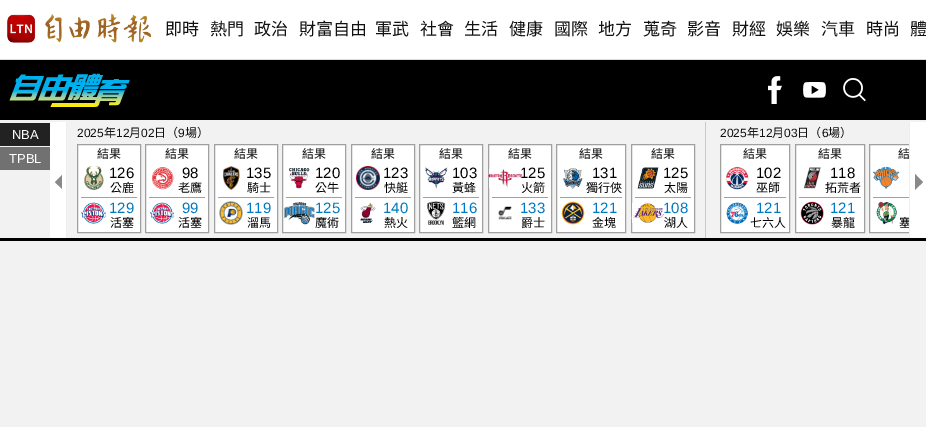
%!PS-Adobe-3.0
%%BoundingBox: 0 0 926 427
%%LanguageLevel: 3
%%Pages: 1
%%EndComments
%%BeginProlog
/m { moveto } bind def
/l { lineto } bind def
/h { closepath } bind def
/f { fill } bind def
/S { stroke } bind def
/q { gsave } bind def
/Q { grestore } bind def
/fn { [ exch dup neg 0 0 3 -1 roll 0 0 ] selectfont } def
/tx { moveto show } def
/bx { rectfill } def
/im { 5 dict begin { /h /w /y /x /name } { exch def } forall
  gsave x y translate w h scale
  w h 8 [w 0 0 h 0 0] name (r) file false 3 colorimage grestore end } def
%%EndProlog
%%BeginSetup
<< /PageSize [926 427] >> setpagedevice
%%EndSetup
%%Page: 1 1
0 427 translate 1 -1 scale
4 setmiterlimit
0.949 setgray
0 0 926 427 bx
1 setgray
0 0 926 59 bx
0.863 setgray
0 59 926 1 bx
(image0.raw) 7 13 145 30 im
/NotoSansCJKTC-Regular 17 fn
0.067 setgray
(即時) 165 35 tx
(熱門) 210 35 tx
(政治) 254 35 tx
(財富自由) 299 35 tx
(軍武) 375 35 tx
(社會) 420 35 tx
(生活) 464 35 tx
(健康) 509 35 tx
(國際) 554 35 tx
(地方) 598 35 tx
(蒐奇) 643 35 tx
(影音) 687 35 tx
(財經) 732 35 tx
(娛樂) 776 35 tx
(汽車) 821 35 tx
(時尚) 866 35 tx
(體) 910 35 tx
0 setgray
0 60 926 60 bx
(image1.raw) 9 73 121 34 im
(image2.raw) 768 76 14 28 im
(image3.raw) 803 82 23 16 im
(image4.raw) 843 78 23 24 im
0 238 926 3 bx
0.133 setgray
0 123 50 23 bx
/LiberationSans-Regular 13 fn
1 setgray
(NBA) 12 139 tx
0.443 setgray
0 147 50 23 bx
1 setgray
(TPBL) 9 163 tx
50 122 16 116 bx
(image5.raw) 55 174 7 15 im
0.933 setgray
66 122 1 116 bx
0.792 setgray
705 122 1 116 bx
/LiberationSans-Regular 12 fn
0.067 setgray
(2025) 77 137 tx
/NotoSansCJKTC-Regular 12 fn
(年) 104 137 tx
/LiberationSans-Regular 12 fn
(12) 116 137 tx
/NotoSansCJKTC-Regular 12 fn
(月) 129 137 tx
/LiberationSans-Regular 12 fn
(02) 141 137 tx
/NotoSansCJKTC-Regular 12 fn
(日（) 154 137 tx
/LiberationSans-Regular 12 fn
(9) 178 137 tx
/NotoSansCJKTC-Regular 12 fn
(場）) 185 137 tx
1 setgray
77.5 144.5 m 140.5 144.5 l 140.5 232.5 l 77.5 232.5 l h q f Q
0.627 setgray
S
0.067 setgray
(結果) 97 158 tx
0.627 setgray
81 197 56 1 bx
(image6.raw) 84 166 20 24 im
/LiberationSans-Regular 15 fn
0 setgray
(126) 109 178 tx
/NotoSansCJKTC-Regular 12 fn
(公鹿) 110 192 tx
(image7.raw) 81 202 25 22 im
/LiberationSans-Regular 15 fn
0 0.475 0.765 setrgbcolor
(129) 109 213 tx
/NotoSansCJKTC-Regular 12 fn
0 setgray
(活塞) 110 227 tx
1 setgray
145.5 144.5 m 208.5 144.5 l 208.5 232.5 l 145.5 232.5 l h q f Q
0.627 setgray
S
0.067 setgray
(結果) 165 158 tx
0.627 setgray
149 197 56 1 bx
(image8.raw) 152 167 22 23 im
/LiberationSans-Regular 15 fn
0 setgray
(98) 182 178 tx
/NotoSansCJKTC-Regular 12 fn
(老鷹) 178 192 tx
(image9.raw) 150 202 25 22 im
/LiberationSans-Regular 15 fn
0 0.475 0.765 setrgbcolor
(99) 182 213 tx
/NotoSansCJKTC-Regular 12 fn
0 setgray
(活塞) 178 227 tx
1 setgray
214.5 144.5 m 277.5 144.5 l 277.5 232.5 l 214.5 232.5 l h q f Q
0.627 setgray
S
0.067 setgray
(結果) 234 158 tx
0.627 setgray
218 197 56 1 bx
(image10.raw) 223 166 17 24 im
/LiberationSans-Regular 15 fn
0 setgray
(135) 246 178 tx
/NotoSansCJKTC-Regular 12 fn
(騎士) 247 192 tx
(image11.raw) 219 201 24 24 im
/LiberationSans-Regular 15 fn
0 0.475 0.765 setrgbcolor
(119) 246 213 tx
/NotoSansCJKTC-Regular 12 fn
0 setgray
(溜馬) 247 227 tx
1 setgray
282.5 144.5 m 345.5 144.5 l 345.5 232.5 l 282.5 232.5 l h q f Q
0.627 setgray
S
0.067 setgray
(結果) 302 158 tx
0.627 setgray
286 197 56 1 bx
(image12.raw) 289 168 21 21 im
/LiberationSans-Regular 15 fn
0 setgray
(120) 315 178 tx
/NotoSansCJKTC-Regular 12 fn
(公牛) 315 192 tx
(image13.raw) 284 202 31 23 im
/LiberationSans-Regular 15 fn
0 0.475 0.765 setrgbcolor
(125) 315 213 tx
/NotoSansCJKTC-Regular 12 fn
0 setgray
(魔術) 315 227 tx
1 setgray
351.5 144.5 m 414.5 144.5 l 414.5 232.5 l 351.5 232.5 l h q f Q
0.627 setgray
S
0.067 setgray
(結果) 371 158 tx
0.627 setgray
355 197 56 1 bx
(image14.raw) 356 166 24 24 im
/LiberationSans-Regular 15 fn
0 setgray
(123) 383 178 tx
/NotoSansCJKTC-Regular 12 fn
(快艇) 384 192 tx
(image15.raw) 360 203 16 20 im
/LiberationSans-Regular 15 fn
0 0.475 0.765 setrgbcolor
(140) 383 213 tx
/NotoSansCJKTC-Regular 12 fn
0 setgray
(熱火) 384 227 tx
1 setgray
419.5 144.5 m 482.5 144.5 l 482.5 232.5 l 419.5 232.5 l h q f Q
0.627 setgray
S
0.067 setgray
(結果) 439 158 tx
0.627 setgray
423 197 56 1 bx
(image16.raw) 424 167 24 22 im
/LiberationSans-Regular 15 fn
0 setgray
(103) 452 178 tx
/NotoSansCJKTC-Regular 12 fn
(黃蜂) 452 192 tx
(image17.raw) 427 201 19 24 im
/LiberationSans-Regular 15 fn
0 0.475 0.765 setrgbcolor
(116) 452 213 tx
/NotoSansCJKTC-Regular 12 fn
0 setgray
(籃網) 452 227 tx
1 setgray
488.5 144.5 m 551.5 144.5 l 551.5 232.5 l 488.5 232.5 l h q f Q
0.627 setgray
S
0.067 setgray
(結果) 508 158 tx
0.627 setgray
492 197 56 1 bx
/LiberationSans-Regular 15 fn
0 setgray
(125) 520 178 tx
/NotoSansCJKTC-Regular 12 fn
(火箭) 521 192 tx
(image18.raw) 488 169 34 19 im
(image19.raw) 498 206 14 14 im
/LiberationSans-Regular 15 fn
0 0.475 0.765 setrgbcolor
(133) 520 213 tx
/NotoSansCJKTC-Regular 12 fn
0 setgray
(爵士) 521 227 tx
1 setgray
556.5 144.5 m 625.5 144.5 l 625.5 232.5 l 556.5 232.5 l h q f Q
0.627 setgray
S
0.067 setgray
(結果) 579 158 tx
0.627 setgray
560 197 62 1 bx
(image20.raw) 563 168 20 21 im
/LiberationSans-Regular 15 fn
0 setgray
(131) 592 178 tx
/NotoSansCJKTC-Regular 12 fn
(獨行俠) 586 192 tx
(image21.raw) 561 201 24 24 im
/LiberationSans-Regular 15 fn
0 0.475 0.765 setrgbcolor
(121) 592 213 tx
/NotoSansCJKTC-Regular 12 fn
0 setgray
(金塊) 592 227 tx
1 setgray
631.5 144.5 m 694.5 144.5 l 694.5 232.5 l 631.5 232.5 l h q f Q
0.627 setgray
S
0.067 setgray
(結果) 651 158 tx
0.627 setgray
635 197 56 1 bx
(image22.raw) 637 167 22 22 im
/LiberationSans-Regular 15 fn
0 setgray
(125) 663 178 tx
/NotoSansCJKTC-Regular 12 fn
(太陽) 664 192 tx
/LiberationSans-Regular 15 fn
0 0.475 0.765 setrgbcolor
(108) 663 213 tx
/NotoSansCJKTC-Regular 12 fn
0 setgray
(湖人) 664 227 tx
(image23.raw) 631 203 35 20 im
/LiberationSans-Regular 12 fn
0.067 setgray
(2025) 720 137 tx
/NotoSansCJKTC-Regular 12 fn
(年) 747 137 tx
/LiberationSans-Regular 12 fn
(12) 759 137 tx
/NotoSansCJKTC-Regular 12 fn
(月) 772 137 tx
/LiberationSans-Regular 12 fn
(03) 784 137 tx
/NotoSansCJKTC-Regular 12 fn
(日（) 797 137 tx
/LiberationSans-Regular 12 fn
(6) 822 137 tx
/NotoSansCJKTC-Regular 12 fn
(場）) 828 137 tx
1 setgray
720.5 144.5 m 789.5 144.5 l 789.5 232.5 l 720.5 232.5 l h q f Q
0.627 setgray
S
0.067 setgray
(結果) 743 158 tx
0.627 setgray
724 197 62 1 bx
(image24.raw) 725 166 24 24 im
/LiberationSans-Regular 15 fn
0 setgray
(102) 756 178 tx
/NotoSansCJKTC-Regular 12 fn
(巫師) 756 192 tx
(image25.raw) 726 202 22 22 im
/LiberationSans-Regular 15 fn
0 0.475 0.765 setrgbcolor
(121) 756 213 tx
/NotoSansCJKTC-Regular 12 fn
0 setgray
(七六人) 750 227 tx
1 setgray
795.5 144.5 m 864.5 144.5 l 864.5 232.5 l 795.5 232.5 l h q f Q
0.627 setgray
S
0.067 setgray
(結果) 818 158 tx
0.627 setgray
799 197 62 1 bx
(image26.raw) 803 167 18 22 im
/LiberationSans-Regular 15 fn
0 setgray
(118) 830 178 tx
/NotoSansCJKTC-Regular 12 fn
(拓荒者) 825 192 tx
(image27.raw) 800 201 24 24 im
/LiberationSans-Regular 15 fn
0 0.475 0.765 setrgbcolor
(121) 830 213 tx
/NotoSansCJKTC-Regular 12 fn
0 setgray
(暴龍) 831 227 tx
1 setgray
870 145 39 87 bx
0.627 setgray
869.5 144.5 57 88 rectstroke
0.067 setgray
(結) 898 158 tx
0.627 setgray
873 197 36 1 bx
(image28.raw) 872 166 28 23 im
(image29.raw) 876 201 21 24 im
0 setgray
(塞) 899 227 tx
1 setgray
910 122 16 116 bx
(image30.raw) 915 174 8 16 im
0.933 setgray
909 122 1 116 bx
showpage
%%EOF
